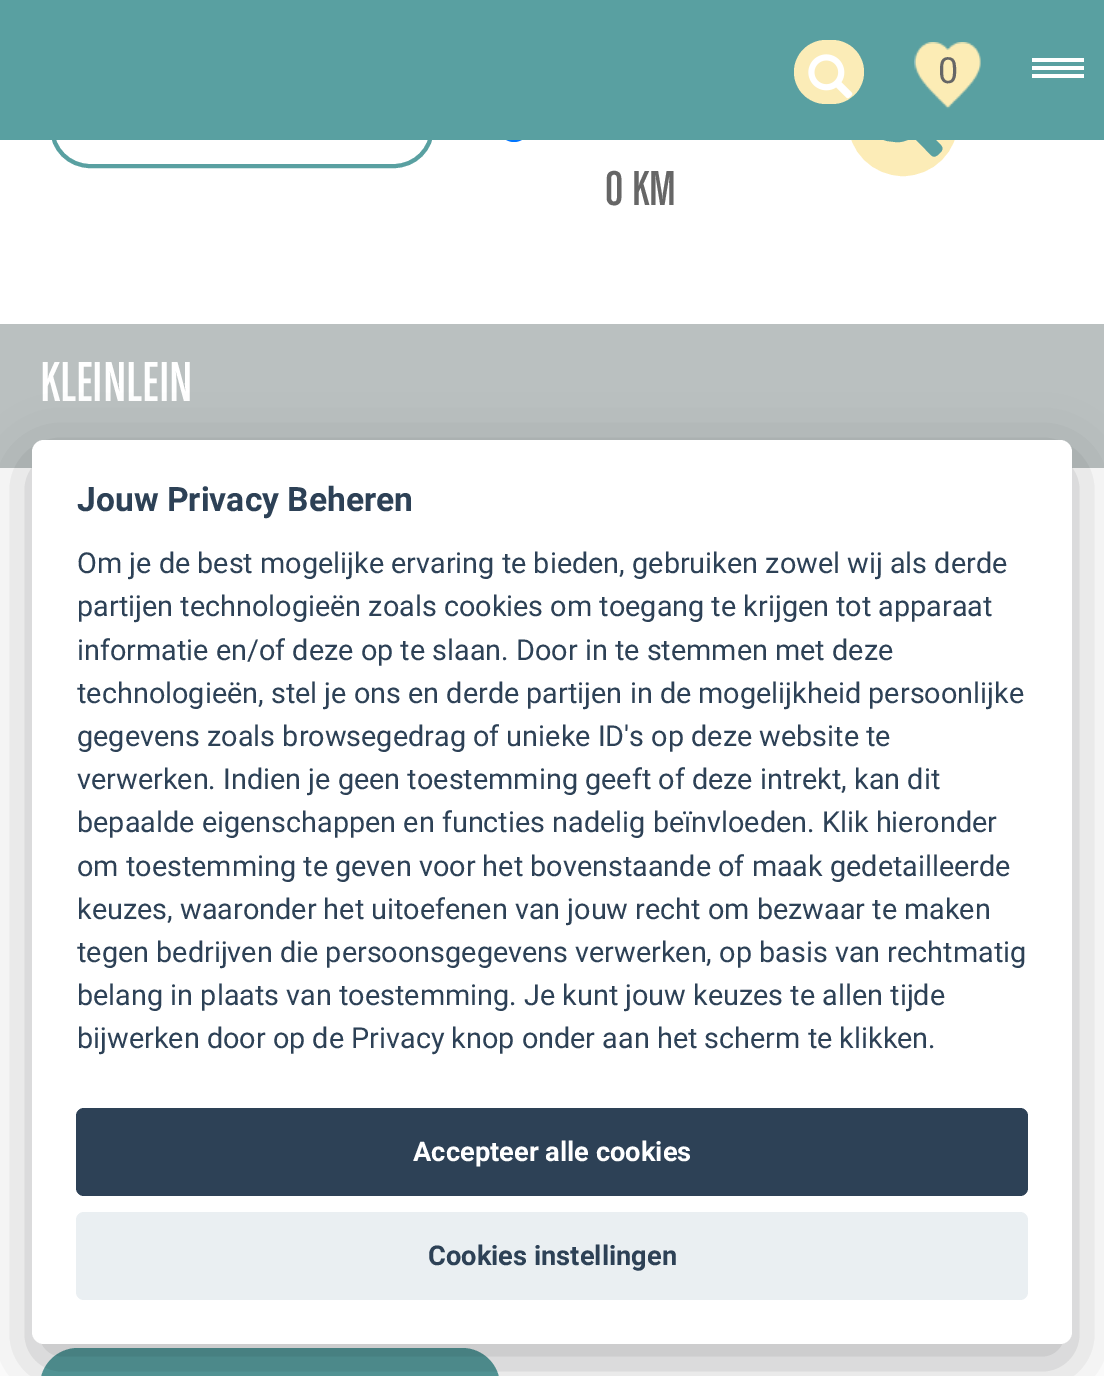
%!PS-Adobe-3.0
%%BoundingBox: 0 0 1104 1376
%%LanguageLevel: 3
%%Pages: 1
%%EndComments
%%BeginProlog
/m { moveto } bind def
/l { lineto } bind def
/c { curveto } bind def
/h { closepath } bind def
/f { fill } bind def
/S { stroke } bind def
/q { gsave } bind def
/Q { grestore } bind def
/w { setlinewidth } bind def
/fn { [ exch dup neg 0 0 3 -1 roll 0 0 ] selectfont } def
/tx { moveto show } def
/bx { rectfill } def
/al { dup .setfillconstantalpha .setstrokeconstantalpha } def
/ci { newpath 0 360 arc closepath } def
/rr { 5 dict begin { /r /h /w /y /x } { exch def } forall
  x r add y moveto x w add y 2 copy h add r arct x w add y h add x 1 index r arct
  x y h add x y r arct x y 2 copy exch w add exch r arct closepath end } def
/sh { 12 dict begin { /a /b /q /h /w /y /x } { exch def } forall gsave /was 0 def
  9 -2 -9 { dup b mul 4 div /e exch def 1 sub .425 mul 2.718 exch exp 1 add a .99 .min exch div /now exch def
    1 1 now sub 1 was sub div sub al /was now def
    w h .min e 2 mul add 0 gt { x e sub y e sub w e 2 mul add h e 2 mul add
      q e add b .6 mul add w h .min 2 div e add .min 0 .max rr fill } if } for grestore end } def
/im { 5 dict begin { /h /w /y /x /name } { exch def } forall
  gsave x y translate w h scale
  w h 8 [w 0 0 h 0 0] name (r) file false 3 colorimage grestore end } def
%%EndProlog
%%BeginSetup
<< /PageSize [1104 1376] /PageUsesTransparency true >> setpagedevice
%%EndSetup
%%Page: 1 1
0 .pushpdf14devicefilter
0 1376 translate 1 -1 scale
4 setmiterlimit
1 setgray
0 0 1104 1376 bx
0.349 0.627 0.631 setrgbcolor
4 w
52 90 380 76 38 rr S
0.988 0.925 0.718 setrgbcolor
903 121 53 ci q f Q
S
0.349 0.627 0.631 setrgbcolor
883 79 m 901 71 922 82 927 101 c 928 109 l 929 115 926 123 923 127 c 935 139 l 940 145 946 147 940 153 c 933 160 932 156 925 149 c 913 137 l 909 140 901 143 895 142 c 887 141 l 857 133 854 91 883 79 c h 906 91 m 882 76 860 114 885 128 c 909 142 931 105 906 91 c h f
0 0.459 1 setrgbcolor
514 126 16 ci f
0.349 0.627 0.631 setrgbcolor
0 0 1104 140 bx
0.984 0.925 0.718 setrgbcolor
794 40 70 64 32 rr f
(image0.raw) 808 54 45 45 im
(image1.raw) 914 42 67 67 im
/Roboto-Regular 36 fn
0.4 setgray
(0) 938 83 tx
1 setgray
1032 58 52 4 bx
1032 66 52 4 bx
1032 74 52 4 bx
/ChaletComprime-Regular 52 fn
0.4 setgray
(0 KM) 605 205 tx
0.729 0.753 0.753 setrgbcolor
0 324 1104 144 bx
/ChaletComprime-Regular 60 fn
1 setgray
(KLEINLEIN) 40 401 tx
0.349 0.627 0.631 setrgbcolor
40 1348 460 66 38 rr f
0.008 0.008 0.012 setrgbcolor
32 460 1040 904 12 30 0.28 sh
1 setgray
32 440 1040 904 12 rr f
/Roboto-Bold 33.6 fn
0.176 0.255 0.337 setrgbcolor
(Jouw Privacy Beheren) 77 511 tx
/Roboto-Regular 28.8 fn
(Om je de best mogelijke ervaring te bieden, gebruiken zowel wij als derde) 77 573 tx
(partijen technologieën zoals cookies om toegang te krijgen tot apparaat) 77 616 tx
(informatie en/of deze op te slaan. Door in te stemmen met deze) 77 660 tx
(technologieën, stel je ons en derde partijen in de mogelijkheid persoonlijke) 77 703 tx
(gegevens zoals browsegedrag of unieke ID's op deze website te) 77 746 tx
(verwerken. Indien je geen toestemming geeft of deze intrekt, kan dit) 77 789 tx
(bepaalde eigenschappen en functies nadelig beïnvloeden. Klik hieronder) 77 832 tx
(om toestemming te geven voor het bovenstaande of maak gedetailleerde) 77 876 tx
(keuzes, waaronder het uitoefenen van jouw recht om bezwaar te maken) 77 919 tx
(tegen bedrijven die persoonsgegevens verwerken, op basis van rechtmatig) 77 962 tx
(belang in plaats van toestemming. Je kunt jouw keuzes te allen tijde) 77 1005 tx
(bijwerken door op de Privacy knop onder aan het scherm te klikken.) 77 1048 tx
76 1108 952 88 8 rr f
/Roboto-Bold 27.25 fn
1 setgray
(Accepteer alle cookies) 413 1161 tx
0.918 0.937 0.949 setrgbcolor
76 1212 952 88 8 rr f
0.176 0.255 0.337 setrgbcolor
(Cookies instellingen) 428 1265 tx
.poppdf14devicefilter showpage
%%EOF
